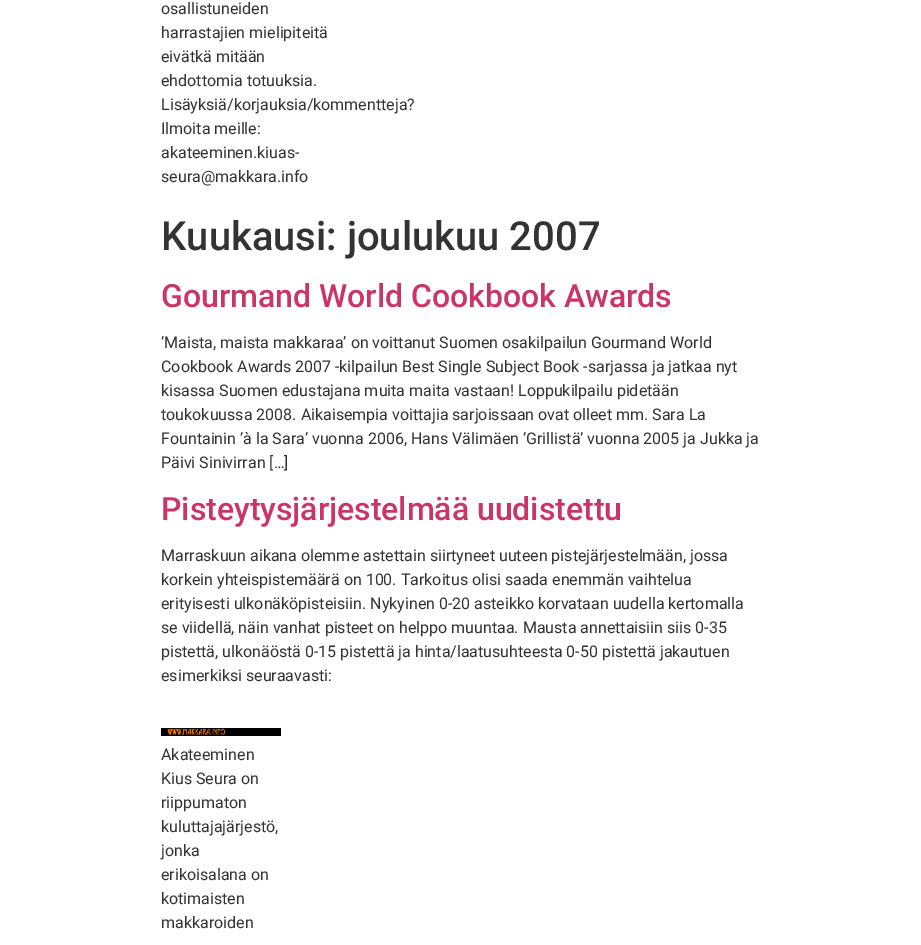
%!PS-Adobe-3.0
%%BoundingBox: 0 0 921 945
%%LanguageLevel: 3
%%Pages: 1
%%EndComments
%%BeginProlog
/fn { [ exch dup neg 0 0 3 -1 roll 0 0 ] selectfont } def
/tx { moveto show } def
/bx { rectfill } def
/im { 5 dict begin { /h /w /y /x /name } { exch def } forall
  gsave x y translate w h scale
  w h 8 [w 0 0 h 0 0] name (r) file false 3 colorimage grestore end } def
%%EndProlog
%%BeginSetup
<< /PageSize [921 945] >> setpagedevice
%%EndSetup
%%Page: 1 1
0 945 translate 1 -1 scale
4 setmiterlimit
1 setgray
0 0 921 945 bx
/Roboto-Regular 16 fn
0.2 setgray
(osallistuneiden) 161 14 tx
(harrastajien mielipiteitä) 161 38 tx
(eivätkä mitään) 161 62 tx
(ehdottomia totuuksia.) 161 86 tx
(Lisäyksiä/korjauksia/kommentteja?) 161 110 tx
(Ilmoita meille:) 161 134 tx
(akateeminen.kiuas-) 161 158 tx
(seura@makkara.info) 161 182 tx
/Roboto-Medium 40 fn
(Kuukausi: joulukuu 2007) 161 250 tx
/Roboto-Medium 32 fn
0.8 0.2 0.4 setrgbcolor
(Gourmand World Cookbook Awards) 161 307 tx
/Roboto-Regular 16 fn
0.2 setgray
(’Maista, maista makkaraa’ on voittanut Suomen osakilpailun Gourmand World) 161 348 tx
(Cookbook Awards 2007 -kilpailun Best Single Subject Book -sarjassa ja jatkaa nyt) 161 372 tx
(kisassa Suomen edustajana muita maita vastaan! Loppukilpailu pidetään) 161 396 tx
(toukokuussa 2008. Aikaisempia voittajia sarjoissaan ovat olleet mm. Sara La) 161 420 tx
(Fountainin ’à la Sara’ vuonna 2006, Hans Välimäen ’Grillistä’ vuonna 2005 ja Jukka ja) 161 444 tx
(Päivi Sinivirran […]) 161 468 tx
/Roboto-Medium 32 fn
0.8 0.2 0.4 setrgbcolor
(Pisteytysjärjestelmää uudistettu) 161 520 tx
/Roboto-Regular 16 fn
0.2 setgray
(Marraskuun aikana olemme astettain siirtyneet uuteen pistejärjestelmään, jossa) 161 561 tx
(korkein yhteispistemäärä on 100. Tarkoitus olisi saada enemmän vaihtelua) 161 585 tx
(erityisesti ulkonäköpisteisiin. Nykyinen 0-20 asteikko korvataan uudella kertomalla) 161 609 tx
(se viidellä, näin vanhat pisteet on helppo muuntaa. Mausta annettaisiin siis 0-35) 161 633 tx
(pistettä, ulkonäöstä 0-15 pistettä ja hinta/laatusuhteesta 0-50 pistettä jakautuen) 161 657 tx
(esimerkiksi seuraavasti:) 161 681 tx
(image0.raw) 161 728 120 8 im
(Akateeminen) 161 760 tx
(Kius Seura on) 161 784 tx
(riippumaton) 161 808 tx
(kuluttajajärjestö,) 161 832 tx
(jonka) 161 856 tx
(erikoisalana on) 161 880 tx
(kotimaisten) 161 904 tx
(makkaroiden) 161 928 tx
showpage
%%EOF
